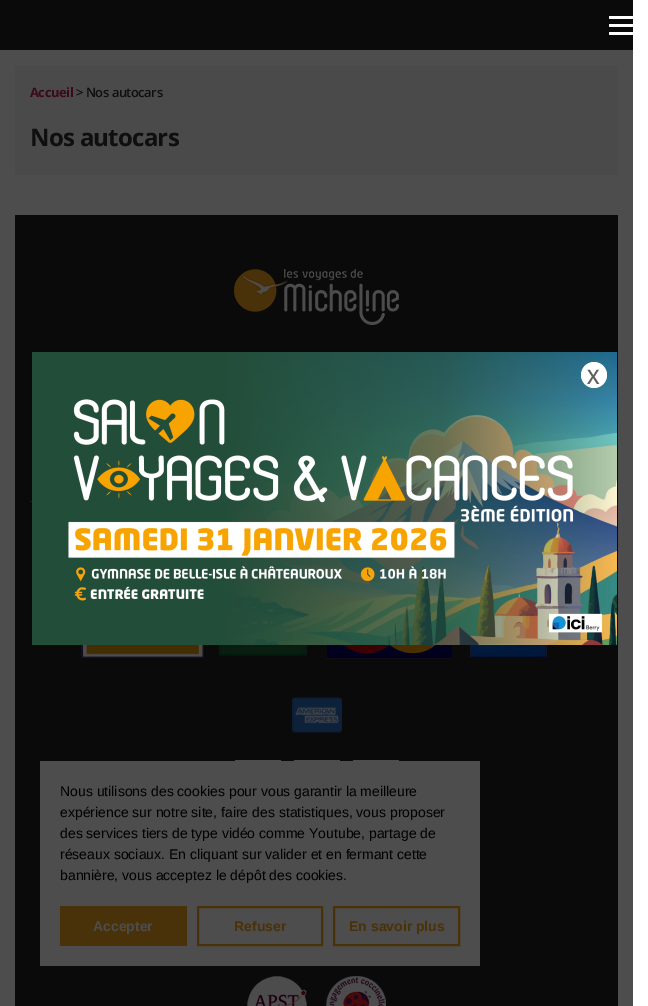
%!PS-Adobe-3.0
%%BoundingBox: 0 0 648 1006
%%LanguageLevel: 3
%%Pages: 1
%%EndComments
%%BeginProlog
/m { moveto } bind def
/f { fill } bind def
/w { setlinewidth } bind def
/fn { [ exch dup neg 0 0 3 -1 roll 0 0 ] selectfont } def
/tx { moveto show } def
/bx { rectfill } def
/ci { newpath 0 360 arc closepath } def
/rr { 5 dict begin { /r /h /w /y /x } { exch def } forall
  x r add y moveto x w add y 2 copy h add r arct x w add y h add x 1 index r arct
  x y h add x y r arct x y 2 copy exch w add exch r arct closepath end } def
/im { 5 dict begin { /h /w /y /x /name } { exch def } forall
  gsave x y translate w h scale
  w h 8 [w 0 0 h 0 0] name (r) file false 3 colorimage grestore end } def
%%EndProlog
%%BeginSetup
<< /PageSize [648 1006] >> setpagedevice
%%EndSetup
%%Page: 1 1
0 1006 translate 1 -1 scale
4 setmiterlimit
1 setgray
0 0 648 1006 bx
0.302 setgray
0 50 633 956 bx
0.039 setgray
0 0 633 50 bx
1 setgray
609 16 24 3 1 rr f
609 24 24 3 1 rr f
609 32 24 3 1 rr f
0.29 setgray
15 66 603 109 bx
/OpenSans-Bold 13 fn
0.231 0.035 0.11 setrgbcolor
30 97 m -0.5 0 (Accueil) ashow
/OpenSans-SemiBold 13 fn
0.059 setgray
76 97 m -0.5 0 (> Nos autocars) ashow
/OpenSans-Bold 24 fn
30 146 m -0.75 0 (Nos autocars) ashow
0.039 setgray
15 215 603 791 bx
(image0.raw) 234 269 165 56 im
0.122 setgray
30 501 2 1 bx
(image1.raw) 81 645 466 14 im
(image2.raw) 292 697 50 36 im
(image3.raw) 235 760 164 1 im
(image4.raw) 247 976 60 30 im
(image5.raw) 326 976 60 30 im
(image6.raw) 32 352 585 293 im
1 setgray
594 375 13 ci f
/OpenSans-SemiBold 20 fn
0.376 setgray
(X) 587 384 tx
0.302 setgray
40 761 440 205 bx
/LiberationSans-Regular 14 fn
0 setgray
(Nous utilisons des cookies pour vous garantir la meilleure) 60 796 tx
(expérience sur notre site, faire des statistiques, vous proposer) 60 817 tx
(des services tiers de type vidéo comme Youtube, partage de) 60 838 tx
(réseaux sociaux. En cliquant sur valider et en fermant cette) 60 859 tx
(bannière, vous acceptez le dépôt des cookies.) 60 880 tx
0.286 0.192 0.035 setrgbcolor
60 906 127 40 bx
/LiberationSans-Bold 14 fn
0.302 setgray
(Accepter) 93 931 tx
0.286 0.192 0.035 setrgbcolor
2 w
198 907 124 38 rectstroke
(Refuser) 234 931 tx
334 907 125 38 rectstroke
(En savoir plus) 349 931 tx
showpage
%%EOF
